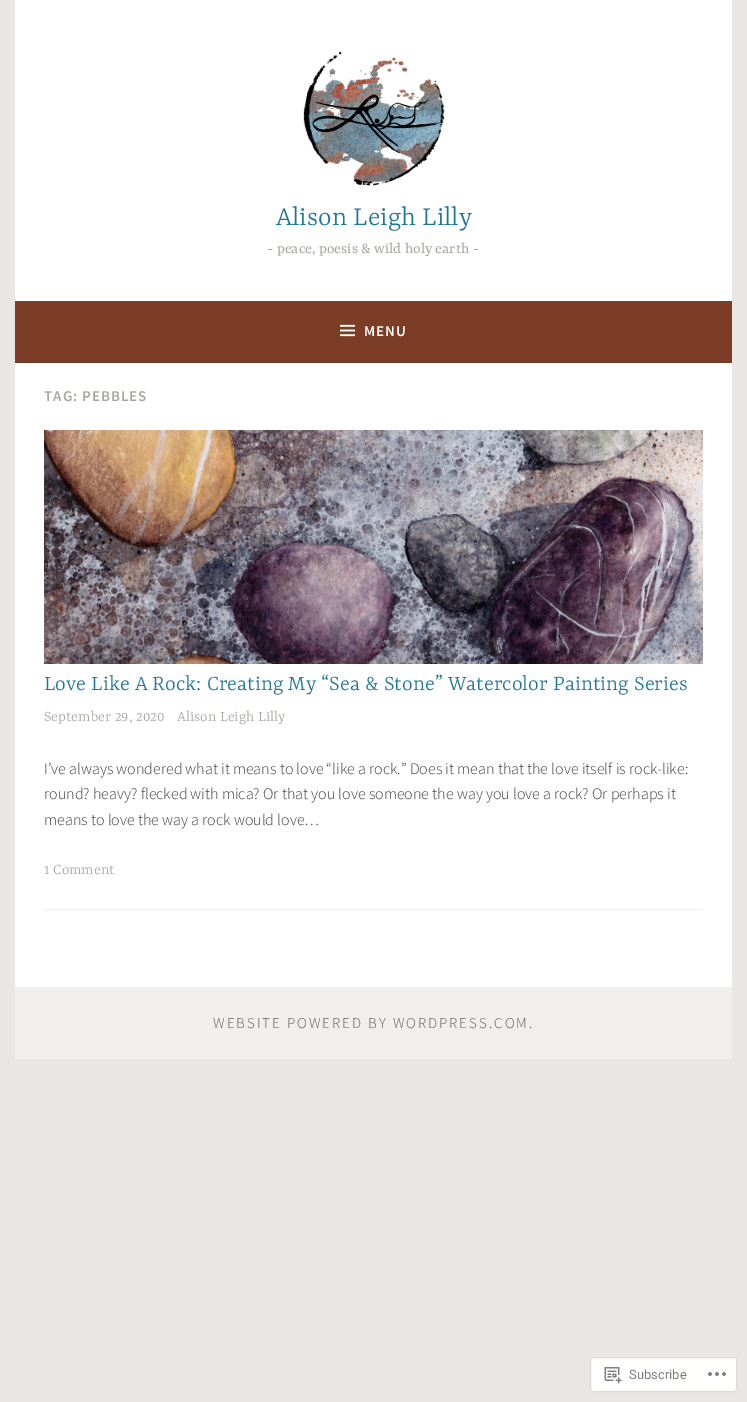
%!PS-Adobe-3.0
%%BoundingBox: 0 0 747 1402
%%LanguageLevel: 3
%%Pages: 1
%%EndComments
%%BeginProlog
/m { moveto } bind def
/f { fill } bind def
/S { stroke } bind def
/q { gsave } bind def
/Q { grestore } bind def
/fn { [ exch dup neg 0 0 3 -1 roll 0 0 ] selectfont } def
/tx { moveto show } def
/bx { rectfill } def
/rr { 5 dict begin { /r /h /w /y /x } { exch def } forall
  x r add y moveto x w add y 2 copy h add r arct x w add y h add x 1 index r arct
  x y h add x y r arct x y 2 copy exch w add exch r arct closepath end } def
/im { 5 dict begin { /h /w /y /x /name } { exch def } forall
  gsave x y translate w h scale
  w h 8 [w 0 0 h 0 0] name (r) file false 3 colorimage grestore end } def
%%EndProlog
%%BeginSetup
<< /PageSize [747 1402] >> setpagedevice
%%EndSetup
%%Page: 1 1
0 1402 translate 1 -1 scale
4 setmiterlimit
0.918 0.902 0.898 setrgbcolor
0 0 747 1402 bx
1 setgray
15 0 717 301 bx
(image0.raw) 303 51 142 135 im
/Yrsa-Light 29 fn
0.122 0.463 0.596 setrgbcolor
(Alison Leigh Lilly) 276 225 tx
/Yrsa-Regular 16 fn
0.659 0.651 0.631 setrgbcolor
(- peace, poesis & wild holy earth -) 267 253 tx
0.486 0.239 0.149 setrgbcolor
15 301 717 60 bx
0.471 0.231 0.145 setrgbcolor
15 361 717 2 bx
(image1.raw) 340 324 15 13 im
/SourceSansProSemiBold-SemiBold 15 fn
1 setgray
364 336 m 1 0 (MENU) ashow
15 363 717 624 bx
0.659 0.651 0.631 setrgbcolor
44 401 m 1 0 (TAG: PEBBLES) ashow
(image2.raw) 44 430 659 234 im
/Yrsa-Light 23 fn
0.122 0.463 0.596 setrgbcolor
(Love Like A Rock: Creating My “Sea & Stone” Watercolor Painting Series) 44 690 tx
/Yrsa-Light 16 fn
0.659 0.651 0.631 setrgbcolor
(September 29, 2020) 44 721 tx
(Alison Leigh Lilly) 177 721 tx
/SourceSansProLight-Light 16 fn
0.267 0.263 0.251 setrgbcolor
(I’ve always wondered what it means to love “like a rock.” Does it mean that the love itself is rock-like:) 44 774 tx
(round? heavy? flecked with mica? Or that you love someone the way you love a rock? Or perhaps it) 44 799 tx
(means to love the way a rock would love…) 44 825 tx
/Yrsa-Light 16 fn
0.659 0.651 0.631 setrgbcolor
(1 Comment) 44 874 tx
0.949 setgray
44 909 659 1 bx
0.945 0.933 0.933 setrgbcolor
15 987 717 72 bx
/SourceSansProLight-Light 15 fn
0.376 setgray
213 1028 m 2 0 (WEBSITE POWERED BY WORDPRESS.COM.) ashow
1 1 0.996 setrgbcolor
590.5 1357.5 146 34 2.5 rr q f Q
0.863 0.863 0.871 setrgbcolor
S
(image3.raw) 604 1367 18 17 im
/Roboto-Regular 13 fn
0.478 0.494 0.518 setrgbcolor
(Subscribe) 629 1379 tx
(image4.raw) 708 1372 18 4 im
showpage
%%EOF
